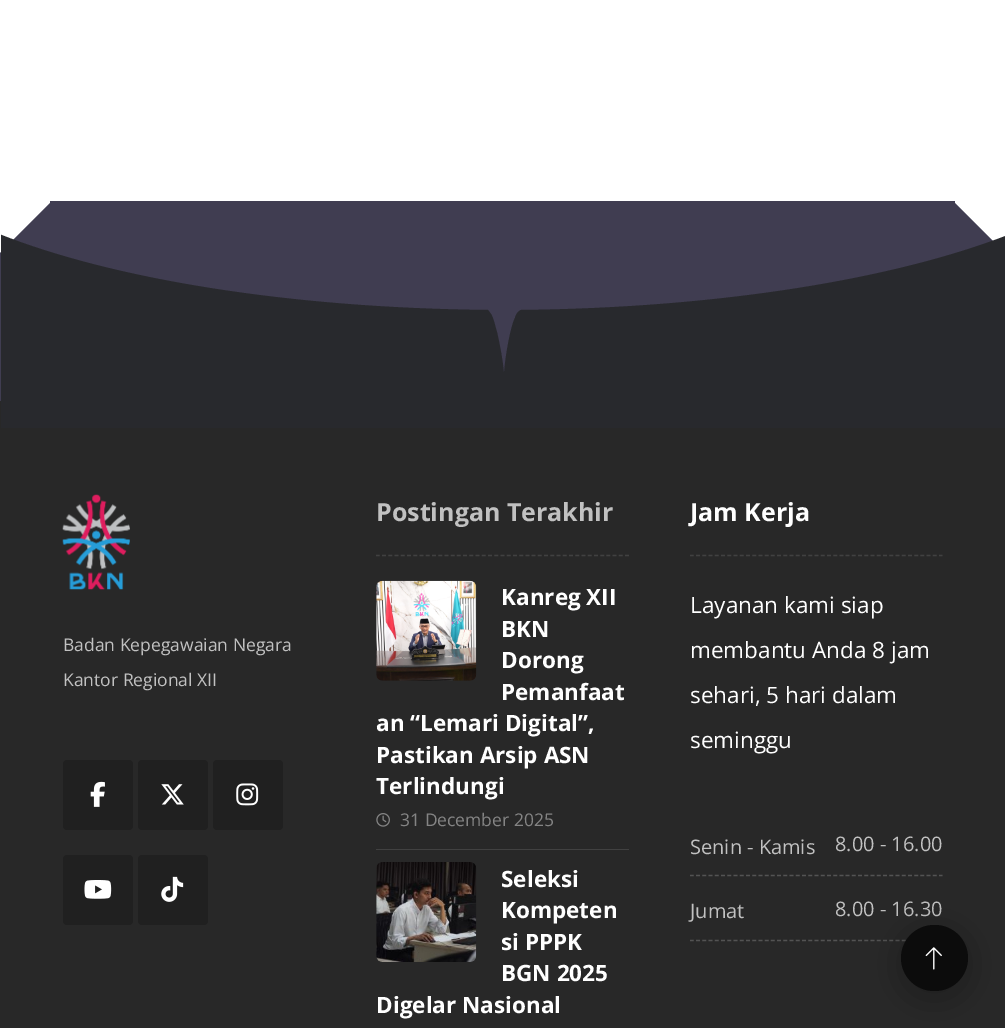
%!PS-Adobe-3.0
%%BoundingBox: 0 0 1005 1028
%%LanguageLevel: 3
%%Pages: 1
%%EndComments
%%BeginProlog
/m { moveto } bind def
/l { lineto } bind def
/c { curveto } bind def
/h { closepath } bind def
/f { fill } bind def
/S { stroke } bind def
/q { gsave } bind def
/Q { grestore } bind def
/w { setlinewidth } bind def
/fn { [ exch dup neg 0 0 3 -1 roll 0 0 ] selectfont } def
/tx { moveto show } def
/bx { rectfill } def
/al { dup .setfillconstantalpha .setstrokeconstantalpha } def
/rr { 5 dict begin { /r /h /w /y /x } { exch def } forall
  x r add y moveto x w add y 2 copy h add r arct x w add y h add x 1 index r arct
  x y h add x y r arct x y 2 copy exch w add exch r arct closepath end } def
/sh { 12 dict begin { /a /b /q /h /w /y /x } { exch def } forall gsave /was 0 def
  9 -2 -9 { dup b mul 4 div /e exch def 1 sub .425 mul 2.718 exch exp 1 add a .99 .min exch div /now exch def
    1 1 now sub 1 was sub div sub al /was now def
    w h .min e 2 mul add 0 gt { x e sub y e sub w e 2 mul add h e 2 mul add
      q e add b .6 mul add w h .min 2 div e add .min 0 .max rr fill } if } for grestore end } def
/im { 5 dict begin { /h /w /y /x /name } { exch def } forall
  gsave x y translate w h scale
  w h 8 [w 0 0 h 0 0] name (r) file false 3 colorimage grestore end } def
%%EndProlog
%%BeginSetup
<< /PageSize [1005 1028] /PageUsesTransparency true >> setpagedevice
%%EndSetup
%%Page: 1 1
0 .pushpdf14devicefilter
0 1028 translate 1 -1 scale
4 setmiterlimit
1 setgray
0 0 1005 1028 bx
0.251 0.239 0.318 setrgbcolor
50 201 905 174 bx
52 201 m 298 201 l 98 401 l -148 401 l h f
707 201 m 953 201 l 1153 401 l 907 401 l h f
0.157 setgray
0 401 1005 627 bx
q
1 178 1004 250 rectclip
0.157 0.161 0.176 setrgbcolor
-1 428 m -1 234 l 112 279 288 308 487 310 c 488 309 490 313 491 314 c 494 319 495 326 497 332 c 500 346 503 360 504 375 c 505 356 511 325 515 318 c 515 318 516 312 521 310 c 720 308 895 279 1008 235 c 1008 428 l h f
Q
(image0.raw) 62 494 68 96 im
/OpenSans-Regular 17.5 fn
0.757 setgray
(Badan Kepegawaian Negara) 63 651 tx
(Kantor Regional XII) 63 686 tx
0.125 setgray
63 760 70 70 4 rr f
(image1.raw) 90 781 15 26 im
138 760 70 70 4 rr f
(image2.raw) 161 784 23 21 im
213 760 70 70 4 rr f
(image3.raw) 236 783 23 23 im
63 855 70 70 4 rr f
(image4.raw) 84 880 28 19 im
138 855 70 70 4 rr f
(image5.raw) 161 876 23 26 im
0.255 setgray
1.2 w
[3.75 2.48] 0 setdash
376 555.5 m 629 555.5 l S
/OpenSans-Bold 25 fn
0.757 setgray
(Postingan Terakhir) 376 521 tx
0.255 setgray
376 849 253 1 bx
(image6.raw) 376 580 101 101 im
/OpenSans-Bold 22.5 fn
1 setgray
(Kanreg XII) 501 605 tx
(BKN) 501 637 tx
(Dorong) 501 668 tx
(Pemanfaat) 501 700 tx
(an “Lemari Digital”,) 376 731 tx
(Pastikan Arsip ASN) 376 763 tx
(Terlindungi) 376 794 tx
(image7.raw) 376 813 14 14 im
/OpenSans-Regular 17.5 fn
0.518 setgray
(31 December 2025) 400 826 tx
(image8.raw) 376 862 101 100 im
/OpenSans-Bold 22.5 fn
1 setgray
(Seleksi) 501 887 tx
(Kompeten) 501 918 tx
(si PPPK) 501 950 tx
(BGN 2025) 501 981 tx
(Digelar Nasional) 376 1013 tx
0.255 setgray
690 555.5 m 942.5 555.5 l S
/OpenSans-Bold 25 fn
1 setgray
(Jam Kerja) 690 521 tx
/OpenSans-Regular 22.5 fn
(Layanan kami siap) 690 613 tx
(membantu Anda 8 jam) 690 658 tx
(sehari, 5 hari dalam) 690 703 tx
(seminggu) 690 748 tx
/OpenSans-Regular 20 fn
0.757 setgray
(Senin - Kamis) 690 854 tx
(8.00 - 16.00) 835 851 tx
0.325 setgray
690 875.5 m 942.5 875.5 l S
0.757 setgray
(Jumat) 690 918 tx
(8.00 - 16.30) 835 916 tx
0.325 setgray
690 940.5 m 942.5 940.5 l S
0 setgray
901 931 67 67 33.5 19 0.3 sh
0.047 setgray
901 925 67 66 33 rr f
(image9.raw) 925 947 17 23 im
.poppdf14devicefilter showpage
%%EOF
